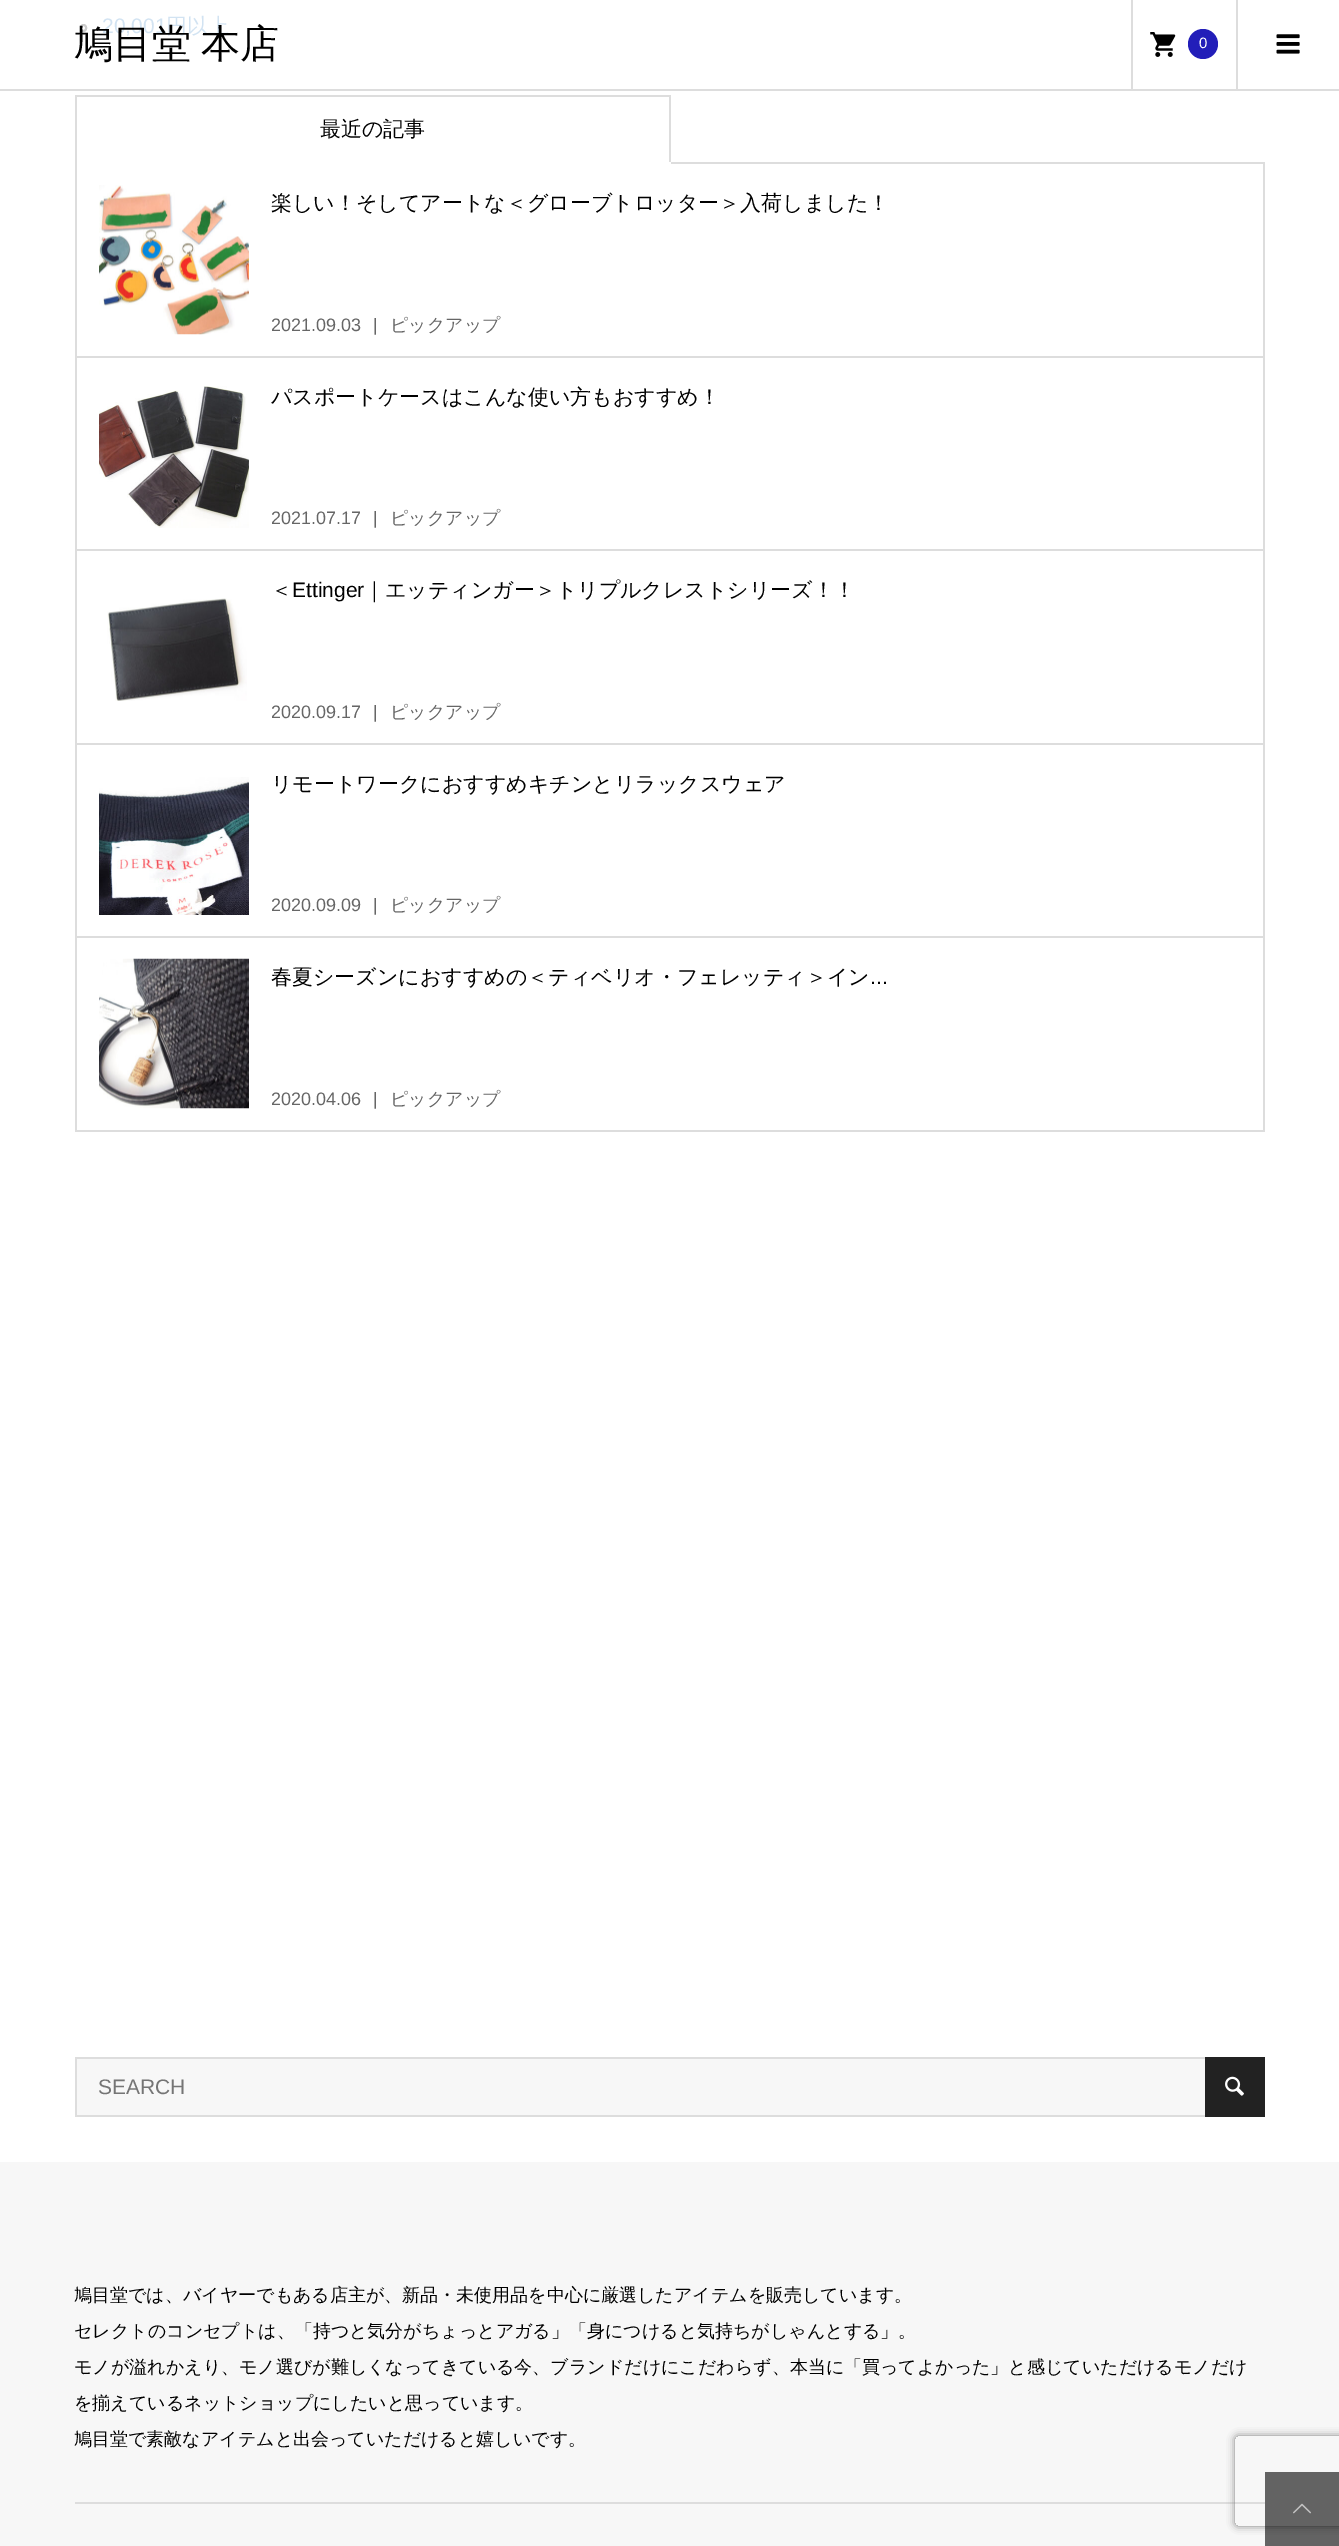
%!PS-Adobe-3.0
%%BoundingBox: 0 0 1339 2546
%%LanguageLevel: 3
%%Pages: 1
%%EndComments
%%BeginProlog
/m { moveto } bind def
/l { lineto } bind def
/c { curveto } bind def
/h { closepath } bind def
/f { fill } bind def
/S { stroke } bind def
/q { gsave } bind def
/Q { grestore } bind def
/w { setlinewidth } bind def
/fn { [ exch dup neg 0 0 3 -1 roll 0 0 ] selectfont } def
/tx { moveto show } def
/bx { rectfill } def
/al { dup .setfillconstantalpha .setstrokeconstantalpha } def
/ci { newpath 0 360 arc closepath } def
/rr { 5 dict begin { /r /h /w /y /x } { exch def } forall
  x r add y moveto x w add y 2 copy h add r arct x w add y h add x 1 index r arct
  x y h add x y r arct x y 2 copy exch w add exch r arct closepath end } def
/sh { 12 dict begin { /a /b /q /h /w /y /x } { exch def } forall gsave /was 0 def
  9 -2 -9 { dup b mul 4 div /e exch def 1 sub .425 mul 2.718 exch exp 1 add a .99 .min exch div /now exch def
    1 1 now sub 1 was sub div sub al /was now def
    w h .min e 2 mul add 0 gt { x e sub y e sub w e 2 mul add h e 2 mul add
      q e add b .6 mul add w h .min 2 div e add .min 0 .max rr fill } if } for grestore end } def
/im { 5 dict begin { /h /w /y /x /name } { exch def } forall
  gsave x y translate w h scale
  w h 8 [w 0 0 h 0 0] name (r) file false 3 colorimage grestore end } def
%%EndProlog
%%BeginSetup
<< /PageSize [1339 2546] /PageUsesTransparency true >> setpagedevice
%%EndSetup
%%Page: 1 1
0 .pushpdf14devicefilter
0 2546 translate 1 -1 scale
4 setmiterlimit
1 setgray
0 0 1339 2546 bx
0.8 setgray
2 w
81 25 5 6 2.5 rr S
/LiberationSans-Regular 21 fn
0.824 0.89 0.949 setrgbcolor
(20,001) 102 33 tx
/WenQuanYiZenHei-Medium 21 fn
(円以上) 166 33 tx
0.867 setgray
75 95 2 69 bx
77 95 594 2 bx
669 95 2 69 bx
1 setgray
669 162 2 2 bx
0 setgray
(最近の記事) 320 136 tx
0.867 setgray
671 162 594 2 bx
1263 164 2 193 bx
75 356 1190 2 bx
75 164 2 193 bx
(image0.raw) 99 185 150 150 im
0 setgray
(楽しい！そしてアートな＜グローブトロッター＞入荷しました！) 271 210 tx
/LiberationSans-Regular 18 fn
0.4 setgray
(2021.09.03) 271 331 tx
(|) 373 331 tx
/WenQuanYiZenHei-Medium 18 fn
(ピックアップ) 390 331 tx
0.867 setgray
1263 357 2 387 bx
75 549 1190 2 bx
75 357 2 194 bx
(image1.raw) 99 386 150 142 im
/WenQuanYiZenHei-Medium 21 fn
0 setgray
(パスポートケースはこんな使い方もおすすめ！) 271 404 tx
/LiberationSans-Regular 18 fn
0.4 setgray
(2021.07.17) 271 524 tx
(|) 373 524 tx
/WenQuanYiZenHei-Medium 18 fn
(ピックアップ) 390 524 tx
0.867 setgray
75 743 1190 2 bx
75 551 2 193 bx
(image2.raw) 107 598 140 103 im
/WenQuanYiZenHei-Medium 21 fn
0 setgray
(＜) 271 597 tx
/LiberationSans-Regular 21 fn
(Ettinger) 292 597 tx
/WenQuanYiZenHei-Medium 21 fn
(｜エッティンガー＞トリプルクレストシリーズ！！) 364 597 tx
/LiberationSans-Regular 18 fn
0.4 setgray
(2020.09.17) 271 718 tx
(|) 373 718 tx
/WenQuanYiZenHei-Medium 18 fn
(ピックアップ) 390 718 tx
0.867 setgray
1263 744 2 387 bx
75 936 1190 2 bx
75 744 2 194 bx
(image3.raw) 99 777 150 138 im
/WenQuanYiZenHei-Medium 21 fn
0 setgray
(リモートワークにおすすめキチンとリラックスウェア) 271 791 tx
/LiberationSans-Regular 18 fn
0.4 setgray
(2020.09.09) 271 911 tx
(|) 373 911 tx
/WenQuanYiZenHei-Medium 18 fn
(ピックアップ) 390 911 tx
0.867 setgray
75 1130 1190 2 bx
75 938 2 193 bx
(image4.raw) 99 958 150 151 im
/WenQuanYiZenHei-Medium 21 fn
0 setgray
(春夏シーズンにおすすめの＜ティベリオ・フェレッティ＞イン) 271 984 tx
/LiberationSans-Regular 21 fn
(...) 870 984 tx
/LiberationSans-Regular 18 fn
0.4 setgray
(2020.04.06) 271 1105 tx
(|) 373 1105 tx
/WenQuanYiZenHei-Medium 18 fn
(ピックアップ) 390 1105 tx
0.867 setgray
0 89 1339 2 bx
/WenQuanYiZenHei-Medium 39 fn
0 setgray
74 57 m -2 0 32 (鳩目堂 本店) widthshow
0.867 setgray
1131 0 2 89 bx
(image5.raw) 1150 32 26 25 im
0.133 0.118 0.725 setrgbcolor
1203 44 15 ci f
/LiberationSans-Regular 15 fn
1 setgray
(0) 1199 48 tx
0.867 setgray
1236 0 2 89 bx
(image6.raw) 1276 34 24 20 im
0.969 setgray
77 2059 1128 56 bx
0.867 setgray
75 2057 1130 2 bx
75 2115 1130 2 bx
75 2057 2 60 bx
/LiberationSans-Regular 21 fn
0.459 setgray
(SEARCH) 98 2094 tx
0.133 setgray
1205 2057 60 60 bx
(image7.raw) 1225 2076 19 20 im
0.969 setgray
0 2162 1339 384 bx
/WenQuanYiZenHei-Medium 18 fn
0 setgray
(鳩目堂では、バイヤーでもある店主が、新品・未使用品を中心に厳選したアイテムを販売しています。) 74 2301 tx
(セレクトのコンセプトは、「持つと気分がちょっとアガる」「身につけると気持ちがしゃんとする」。) 74 2337 tx
(モノが溢れかえり、モノ選びが難しくなってきている今、ブランドだけにこだわらず、本当に「買ってよかった」と感じていただけるモノだけ) 74 2373 tx
(を揃えているネットショップにしたいと思っています。) 74 2409 tx
(鳩目堂で素敵なアイテムと出会っていただけると嬉しいです。) 74 2445 tx
0.867 setgray
75 2502 1190 2 bx
q
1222 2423 m 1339 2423 l 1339 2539 l 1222 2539 l h 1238 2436 m 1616 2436 l 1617.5 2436 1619 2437.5 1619 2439 c 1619 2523 l 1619 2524.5 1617.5 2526 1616 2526 c 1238 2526 l 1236.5 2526 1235 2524.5 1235 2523 c 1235 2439 l 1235 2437.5 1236.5 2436 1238 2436 c h eoclip newpath
0.502 setgray
1235 2436 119 90 3 4 1 sh
Q
0.6 al
0 setgray
1265 2472 74 74 bx
1 al
(image8.raw) 1293 2503 18 11 im
.poppdf14devicefilter showpage
%%EOF
